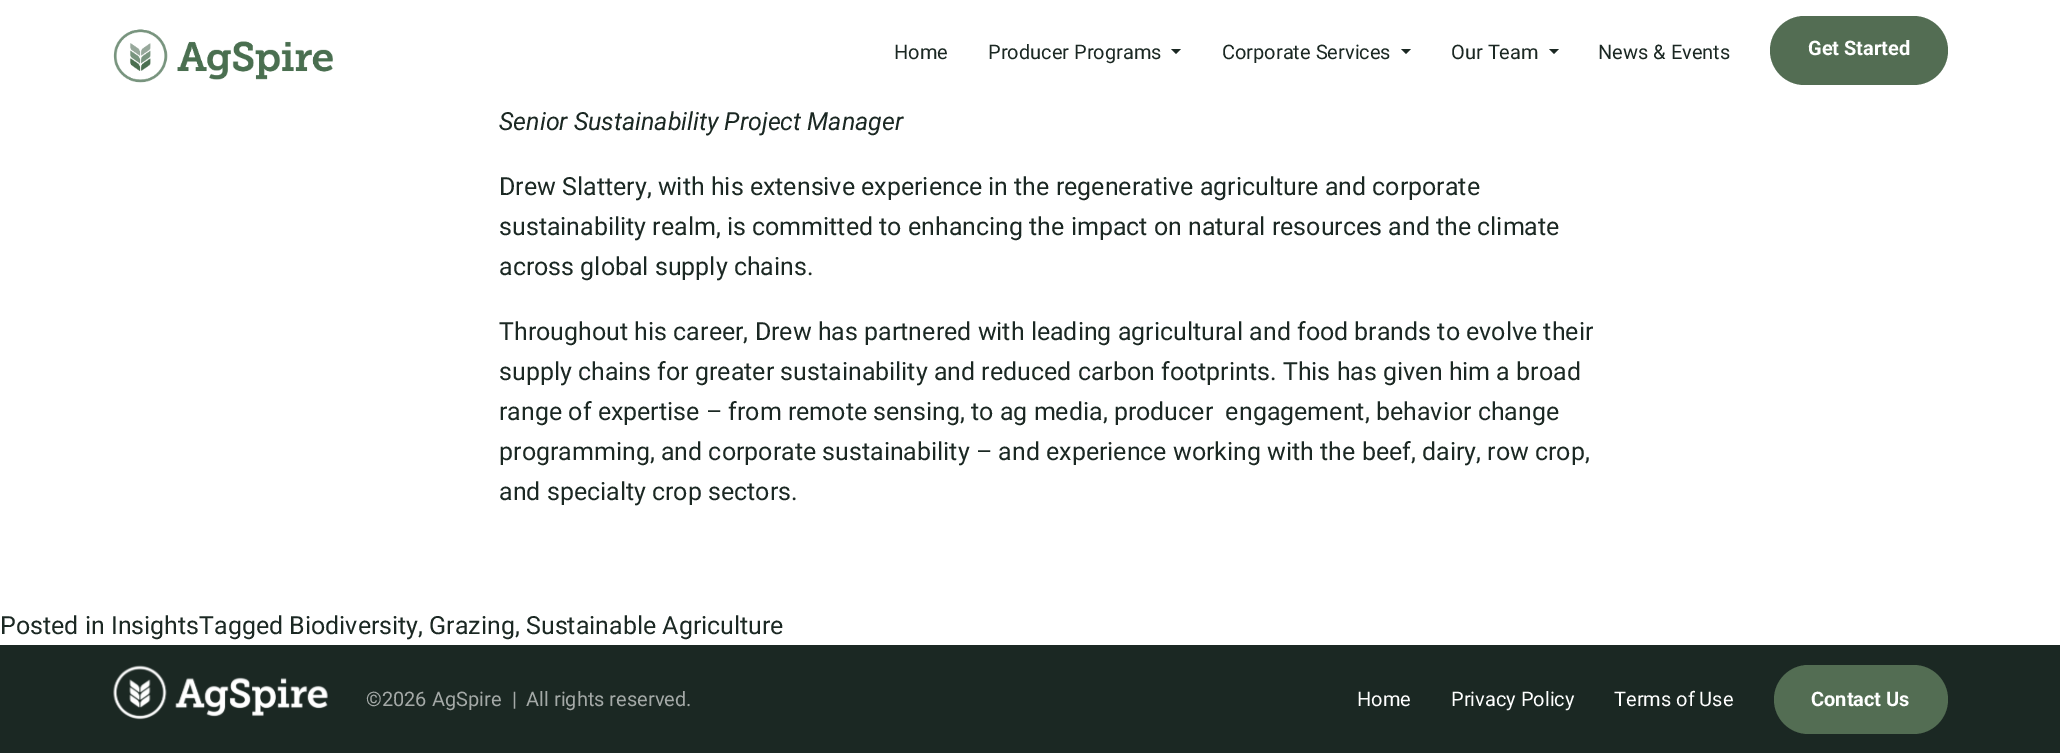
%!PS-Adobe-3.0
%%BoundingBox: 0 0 2060 753
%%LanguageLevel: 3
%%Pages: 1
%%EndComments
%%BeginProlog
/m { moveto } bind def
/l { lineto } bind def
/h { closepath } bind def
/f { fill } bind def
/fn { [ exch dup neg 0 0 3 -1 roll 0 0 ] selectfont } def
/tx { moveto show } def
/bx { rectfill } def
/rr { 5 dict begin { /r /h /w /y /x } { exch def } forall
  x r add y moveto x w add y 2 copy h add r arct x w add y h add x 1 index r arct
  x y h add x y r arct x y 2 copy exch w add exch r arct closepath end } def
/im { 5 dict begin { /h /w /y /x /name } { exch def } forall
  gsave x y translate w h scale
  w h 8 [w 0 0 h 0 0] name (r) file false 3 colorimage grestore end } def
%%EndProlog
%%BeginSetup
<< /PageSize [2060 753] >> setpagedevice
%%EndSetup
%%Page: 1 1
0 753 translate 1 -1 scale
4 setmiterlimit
1 setgray
0 0 2060 753 bx
(image0.raw) 113 29 220 54 im
/Roboto-Regular 20 fn
0.106 0.157 0.137 setrgbcolor
(Home) 894 59 tx
(Producer Programs) 988 59 tx
1171 49 m 1181 49 l 1176 54 l h f
(Corporate Services) 1222 59 tx
1401 49 m 1411 49 l 1406 54 l h f
(Our Team) 1451 59 tx
1549 49 m 1559 49 l 1554 54 l h f
(News & Events) 1598 59 tx
0.325 0.427 0.325 setrgbcolor
1770 16 178 69 34.5 rr f
/Roboto-Bold 20 fn
1 setgray
(Get Started) 1808 55 tx
/Roboto-Italic 25 fn
0.106 0.157 0.137 setrgbcolor
(Senior Sustainability Project Manager) 499 130 tx
/Roboto-Regular 25 fn
(Drew Slattery, with his extensive experience in the regenerative agriculture and corporate) 499 195 tx
(sustainability realm, is committed to enhancing the impact on natural resources and the climate) 499 235 tx
(across global supply chains.) 499 275 tx
(Throughout his career, Drew has partnered with leading agricultural and food brands to evolve their) 499 340 tx
(supply chains for greater sustainability and reduced carbon footprints. This has given him a broad) 499 380 tx
(range of expertise – from remote sensing, to ag media, producer  engagement, behavior change) 499 420 tx
(programming, and corporate sustainability – and experience working with the beef, dairy, row crop,) 499 460 tx
(and specialty crop sectors.) 499 500 tx
(Posted in InsightsTagged Biodiversity, Grazing, Sustainable Agriculture) 0 634 tx
0 645 2060 108 bx
(image1.raw) 113 665 215 55 im
/Roboto-Regular 20 fn
0.643 0.663 0.655 setrgbcolor
(©2026 AgSpire) 366 706 tx
(|) 512 706 tx
(All rights reserved.) 526 706 tx
1 setgray
(Home) 1357 706 tx
(Privacy Policy) 1451 706 tx
(Terms of Use) 1614 706 tx
0.325 0.427 0.325 setrgbcolor
1774 665 174 69 34.5 rr f
/Roboto-Bold 20 fn
1 setgray
(Contact Us) 1811 706 tx
showpage
%%EOF
